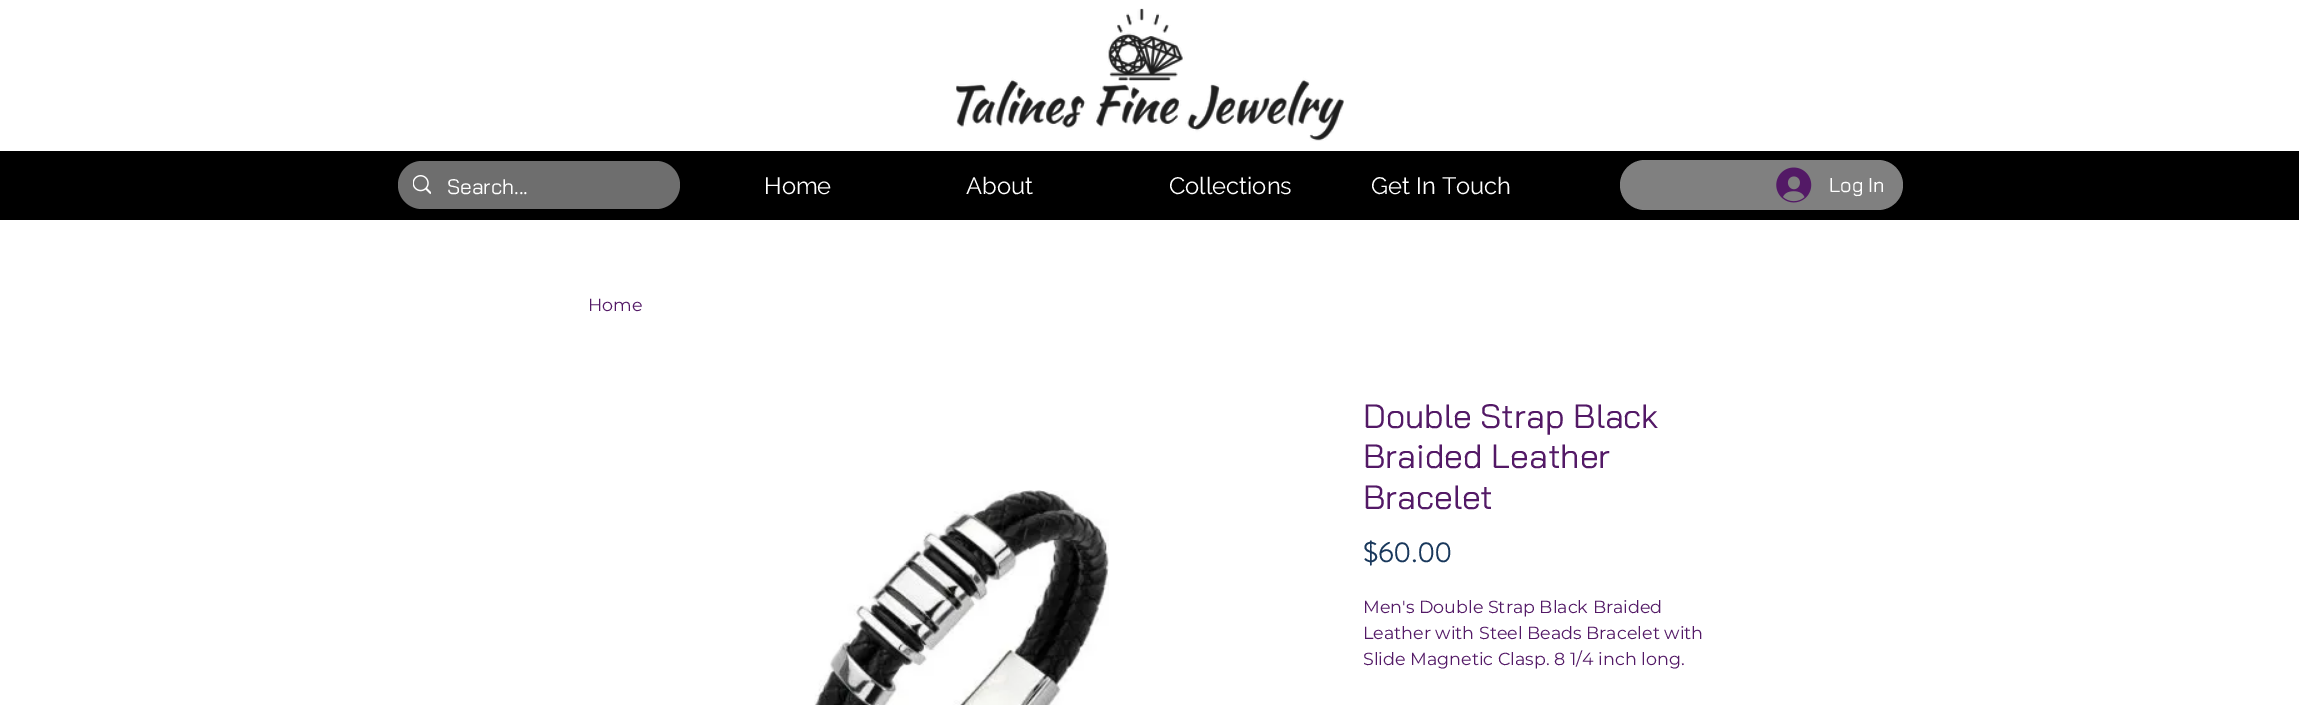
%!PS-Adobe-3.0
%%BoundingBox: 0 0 2299 705
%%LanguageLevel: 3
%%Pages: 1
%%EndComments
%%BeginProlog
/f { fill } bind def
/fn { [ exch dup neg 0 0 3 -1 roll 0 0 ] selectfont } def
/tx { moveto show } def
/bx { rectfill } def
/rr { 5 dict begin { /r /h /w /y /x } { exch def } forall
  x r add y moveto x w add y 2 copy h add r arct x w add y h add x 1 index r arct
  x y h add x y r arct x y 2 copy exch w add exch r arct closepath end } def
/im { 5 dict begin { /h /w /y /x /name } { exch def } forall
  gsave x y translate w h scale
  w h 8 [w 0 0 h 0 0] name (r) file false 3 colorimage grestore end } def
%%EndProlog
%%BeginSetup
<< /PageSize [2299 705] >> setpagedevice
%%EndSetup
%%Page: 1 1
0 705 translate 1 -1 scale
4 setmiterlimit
1 setgray
0 0 2299 705 bx
(image0.raw) 956 8 388 133 im
0 setgray
0 151 2299 69 bx
0.431 setgray
398 161 282 48 24 rr f
(image1.raw) 413 175 18 20 im
/BaiJamjuree-Regular 21 fn
1 setgray
(Search...) 447 194 tx
/Raleway-Regular 23.75 fn
(Home) 764 194 tx
(About) 966 194 tx
(Collections) 1169 194 tx
(Get In Touch) 1371 194 tx
0.502 setgray
1620 160 283 50 25 rr f
(image2.raw) 1776 167 36 36 im
/BaiJamjuree-Regular 20 fn
1 setgray
(Log In) 1829 192 tx
/Montserrat-Regular 17.5 fn
0.325 0.098 0.4 setrgbcolor
(Home) 588 311 tx
(image3.raw) 814 490 295 215 im
/BaiJamjuree-Regular 33.75 fn
(Double Strap Black) 1363 428 tx
(Braided Leather) 1363 468 tx
(Bracelet) 1363 509 tx
/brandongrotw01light-Bold 27.5 fn
0.098 0.22 0.361 setrgbcolor
($60.00) 1363 562 tx
/Montserrat-Regular 17.5 fn
0.325 0.098 0.4 setrgbcolor
(Men's Double Strap Black Braided) 1363 613 tx
(Leather with Steel Beads Bracelet with) 1363 639 tx
(Slide Magnetic Clasp. 8 1/4 inch long.) 1363 665 tx
showpage
%%EOF
